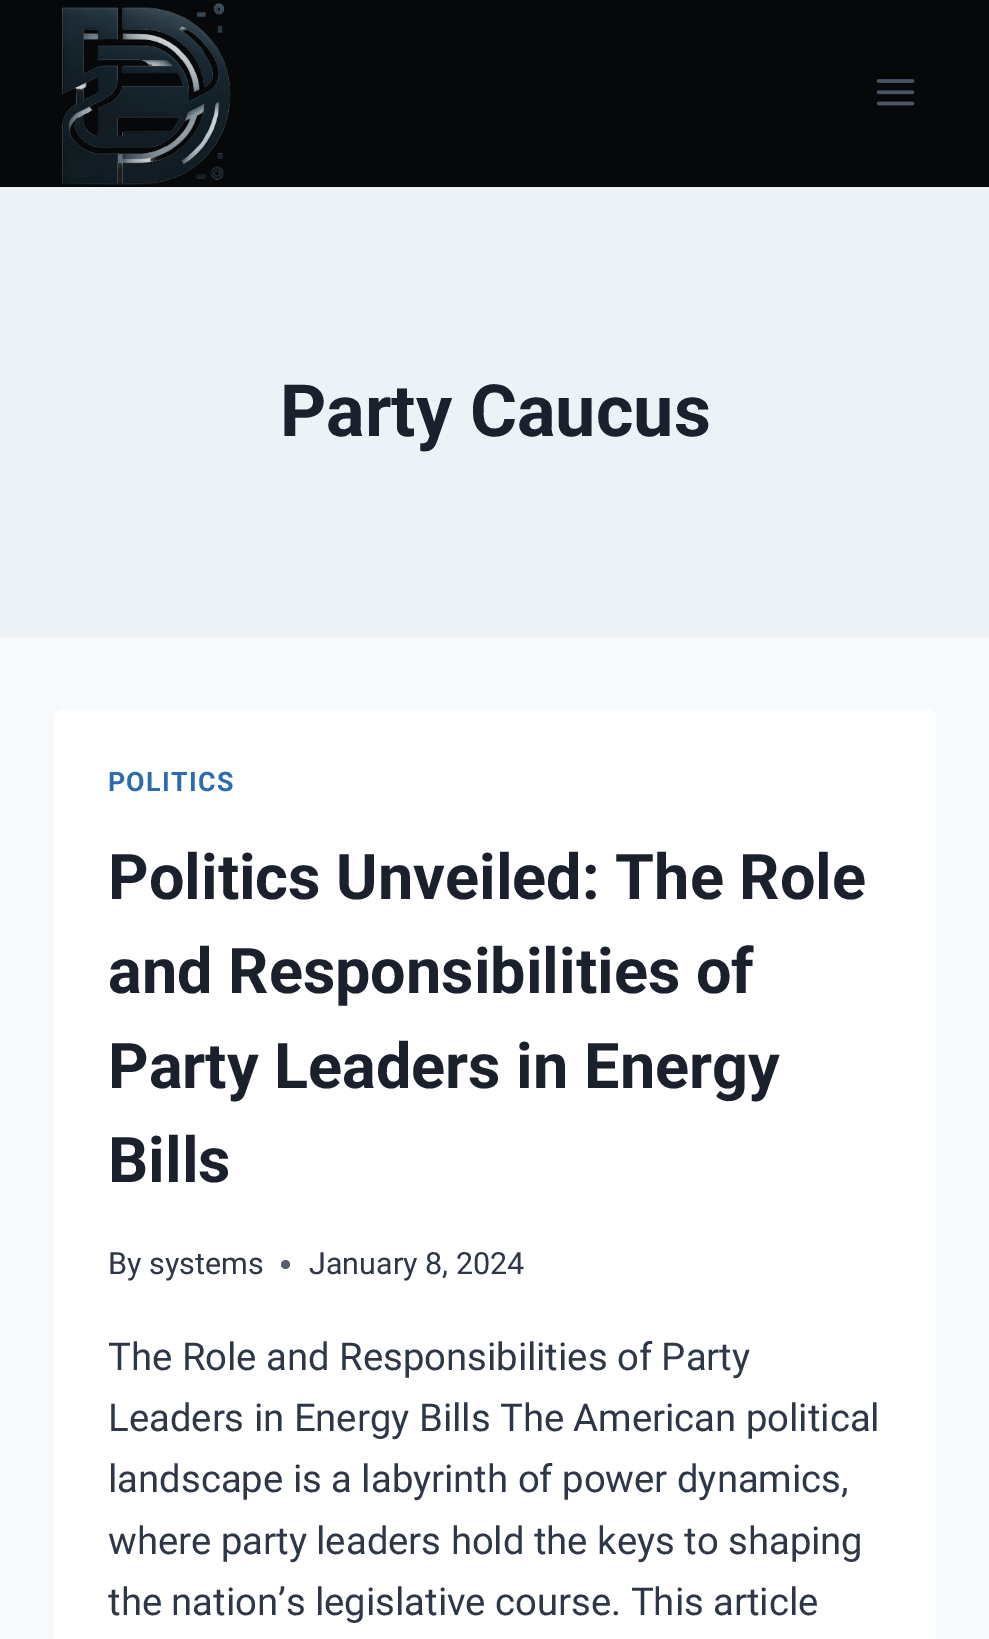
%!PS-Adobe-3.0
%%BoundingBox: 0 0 989 1639
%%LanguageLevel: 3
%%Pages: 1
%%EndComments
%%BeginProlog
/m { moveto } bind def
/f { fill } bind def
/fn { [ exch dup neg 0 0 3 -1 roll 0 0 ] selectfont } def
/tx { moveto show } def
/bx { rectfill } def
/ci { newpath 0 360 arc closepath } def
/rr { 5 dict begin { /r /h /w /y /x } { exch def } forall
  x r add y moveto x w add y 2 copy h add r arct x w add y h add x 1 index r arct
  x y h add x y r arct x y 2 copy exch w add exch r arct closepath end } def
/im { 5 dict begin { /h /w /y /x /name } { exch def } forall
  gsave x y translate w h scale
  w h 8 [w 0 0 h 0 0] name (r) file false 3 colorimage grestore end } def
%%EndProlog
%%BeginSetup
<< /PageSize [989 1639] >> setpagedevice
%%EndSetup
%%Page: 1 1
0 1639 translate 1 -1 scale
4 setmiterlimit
0.969 0.98 0.988 setrgbcolor
0 0 989 1639 bx
0.027 0.031 0.039 setrgbcolor
0 0 989 187 bx
(image0.raw) 62 3 169 182 im
(image1.raw) 876 79 39 27 im
0.929 0.949 0.969 setrgbcolor
0 187 989 450 bx
/Roboto-Bold 72 fn
0.102 0.125 0.173 setrgbcolor
(Party Caucus) 280 436 tx
1 setgray
54 709 882 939 9 rr f
/Roboto-Bold 26.75 fn
0.169 0.424 0.69 setrgbcolor
108 791 m 1.25 0 (POLITICS) ashow
/Roboto-Bold 63 fn
0.102 0.125 0.173 setrgbcolor
(Politics Unveiled: The Role) 108 899 tx
(and Responsibilities of) 108 993 tx
(Party Leaders in Energy) 108 1088 tx
(Bills) 108 1182 tx
/Roboto-Regular 30.5 fn
0.176 0.216 0.282 setrgbcolor
(By) 108 1274 tx
(systems) 149 1274 tx
0.341 0.373 0.427 setrgbcolor
285.5 1264.5 4.5 ci f
0.176 0.216 0.282 setrgbcolor
(January 8, 2024) 309 1274 tx
/Roboto-Regular 38.25 fn
(The Role and Responsibilities of Party) 108 1370 tx
(Leaders in Energy Bills The American political) 108 1431 tx
(landscape is a labyrinth of power dynamics,) 108 1492 tx
(where party leaders hold the keys to shaping) 108 1554 tx
(the nation’s legislative course. This article) 108 1615 tx
showpage
%%EOF
